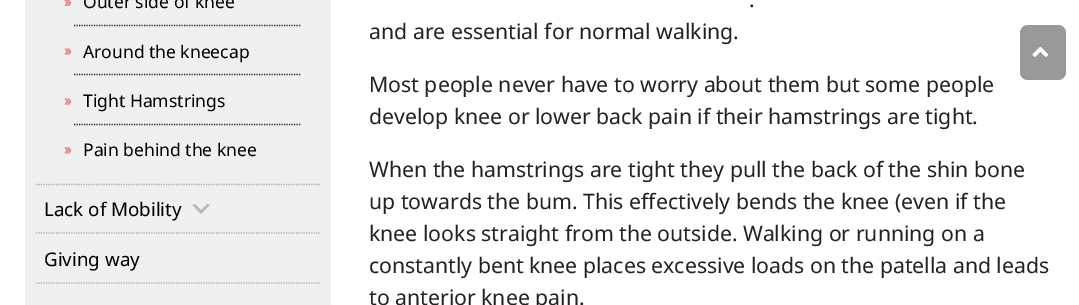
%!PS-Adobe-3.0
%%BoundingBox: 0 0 1079 305
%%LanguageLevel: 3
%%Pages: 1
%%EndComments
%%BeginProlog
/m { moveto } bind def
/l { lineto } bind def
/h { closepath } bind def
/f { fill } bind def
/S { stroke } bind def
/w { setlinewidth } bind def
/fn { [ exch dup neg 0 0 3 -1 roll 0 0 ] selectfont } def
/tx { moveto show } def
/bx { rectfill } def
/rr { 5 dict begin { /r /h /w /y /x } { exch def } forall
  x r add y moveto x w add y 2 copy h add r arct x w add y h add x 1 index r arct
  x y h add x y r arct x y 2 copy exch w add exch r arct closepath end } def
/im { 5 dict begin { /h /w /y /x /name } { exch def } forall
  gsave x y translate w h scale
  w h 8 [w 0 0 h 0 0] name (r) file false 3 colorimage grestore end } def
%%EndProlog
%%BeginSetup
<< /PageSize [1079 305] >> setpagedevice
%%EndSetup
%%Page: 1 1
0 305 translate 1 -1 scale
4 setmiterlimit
1 setgray
0 0 1079 305 bx
0.941 setgray
25 0 306 305 bx
0.678 0.678 0.702 setrgbcolor
1.2 w
[1.25 1.25] 0 setdash
36 184.5 m 321 184.5 l S
0.133 setgray
74 25.5 m 301 25.5 l S
(image0.raw) 63 0 9 6 im
/NotoSans-Regular 17.5 fn
0 setgray
(Outer side of knee) 83 8 tx
0.133 setgray
74 74.5 m 301 74.5 l S
(image1.raw) 64 48 8 7 im
0 setgray
(Around the kneecap) 83 58 tx
0.133 setgray
74 124.5 m 301 124.5 l S
(image1.raw) 64 98 8 7 im
0 setgray
(Tight Hamstrings) 83 107 tx
(image2.raw) 64 147 8 7 im
(Pain behind the knee) 83 156 tx
0.678 0.678 0.702 setrgbcolor
36 233 m 321 233 l S
/NotoSans-Regular 18.75 fn
0 setgray
(Lack of Mobility) 44 216 tx
0.718 0.729 0.737 setrgbcolor
195 204 m 201 210 l 207.5 204 l 210 205 l 201 214 l 192.5 205 l h f
0.678 0.678 0.702 setrgbcolor
36 283 m 321 283 l S
0 setgray
(Giving way) 44 266 tx
/NotoSans-Regular 21.25 fn
0.133 setgray
(.) 749 7 tx
(and are essential for normal walking.) 369 39 tx
(Most people never have to worry about them but some people) 369 92 tx
(develop knee or lower back pain if their hamstrings are tight.) 369 124 tx
(When the hamstrings are tight they pull the back of the shin bone) 369 177 tx
(up towards the bum. This effectively bends the knee \(even if the) 369 209 tx
(knee looks straight from the outside. Walking or running on a) 369 241 tx
(constantly bent knee places excessive loads on the patella and leads) 369 273 tx
(to anterior knee pain.) 369 305 tx
0.6 setgray
1020 25 46 55 8 rr f
(image3.raw) 1032 46 17 11 im
showpage
%%EOF
